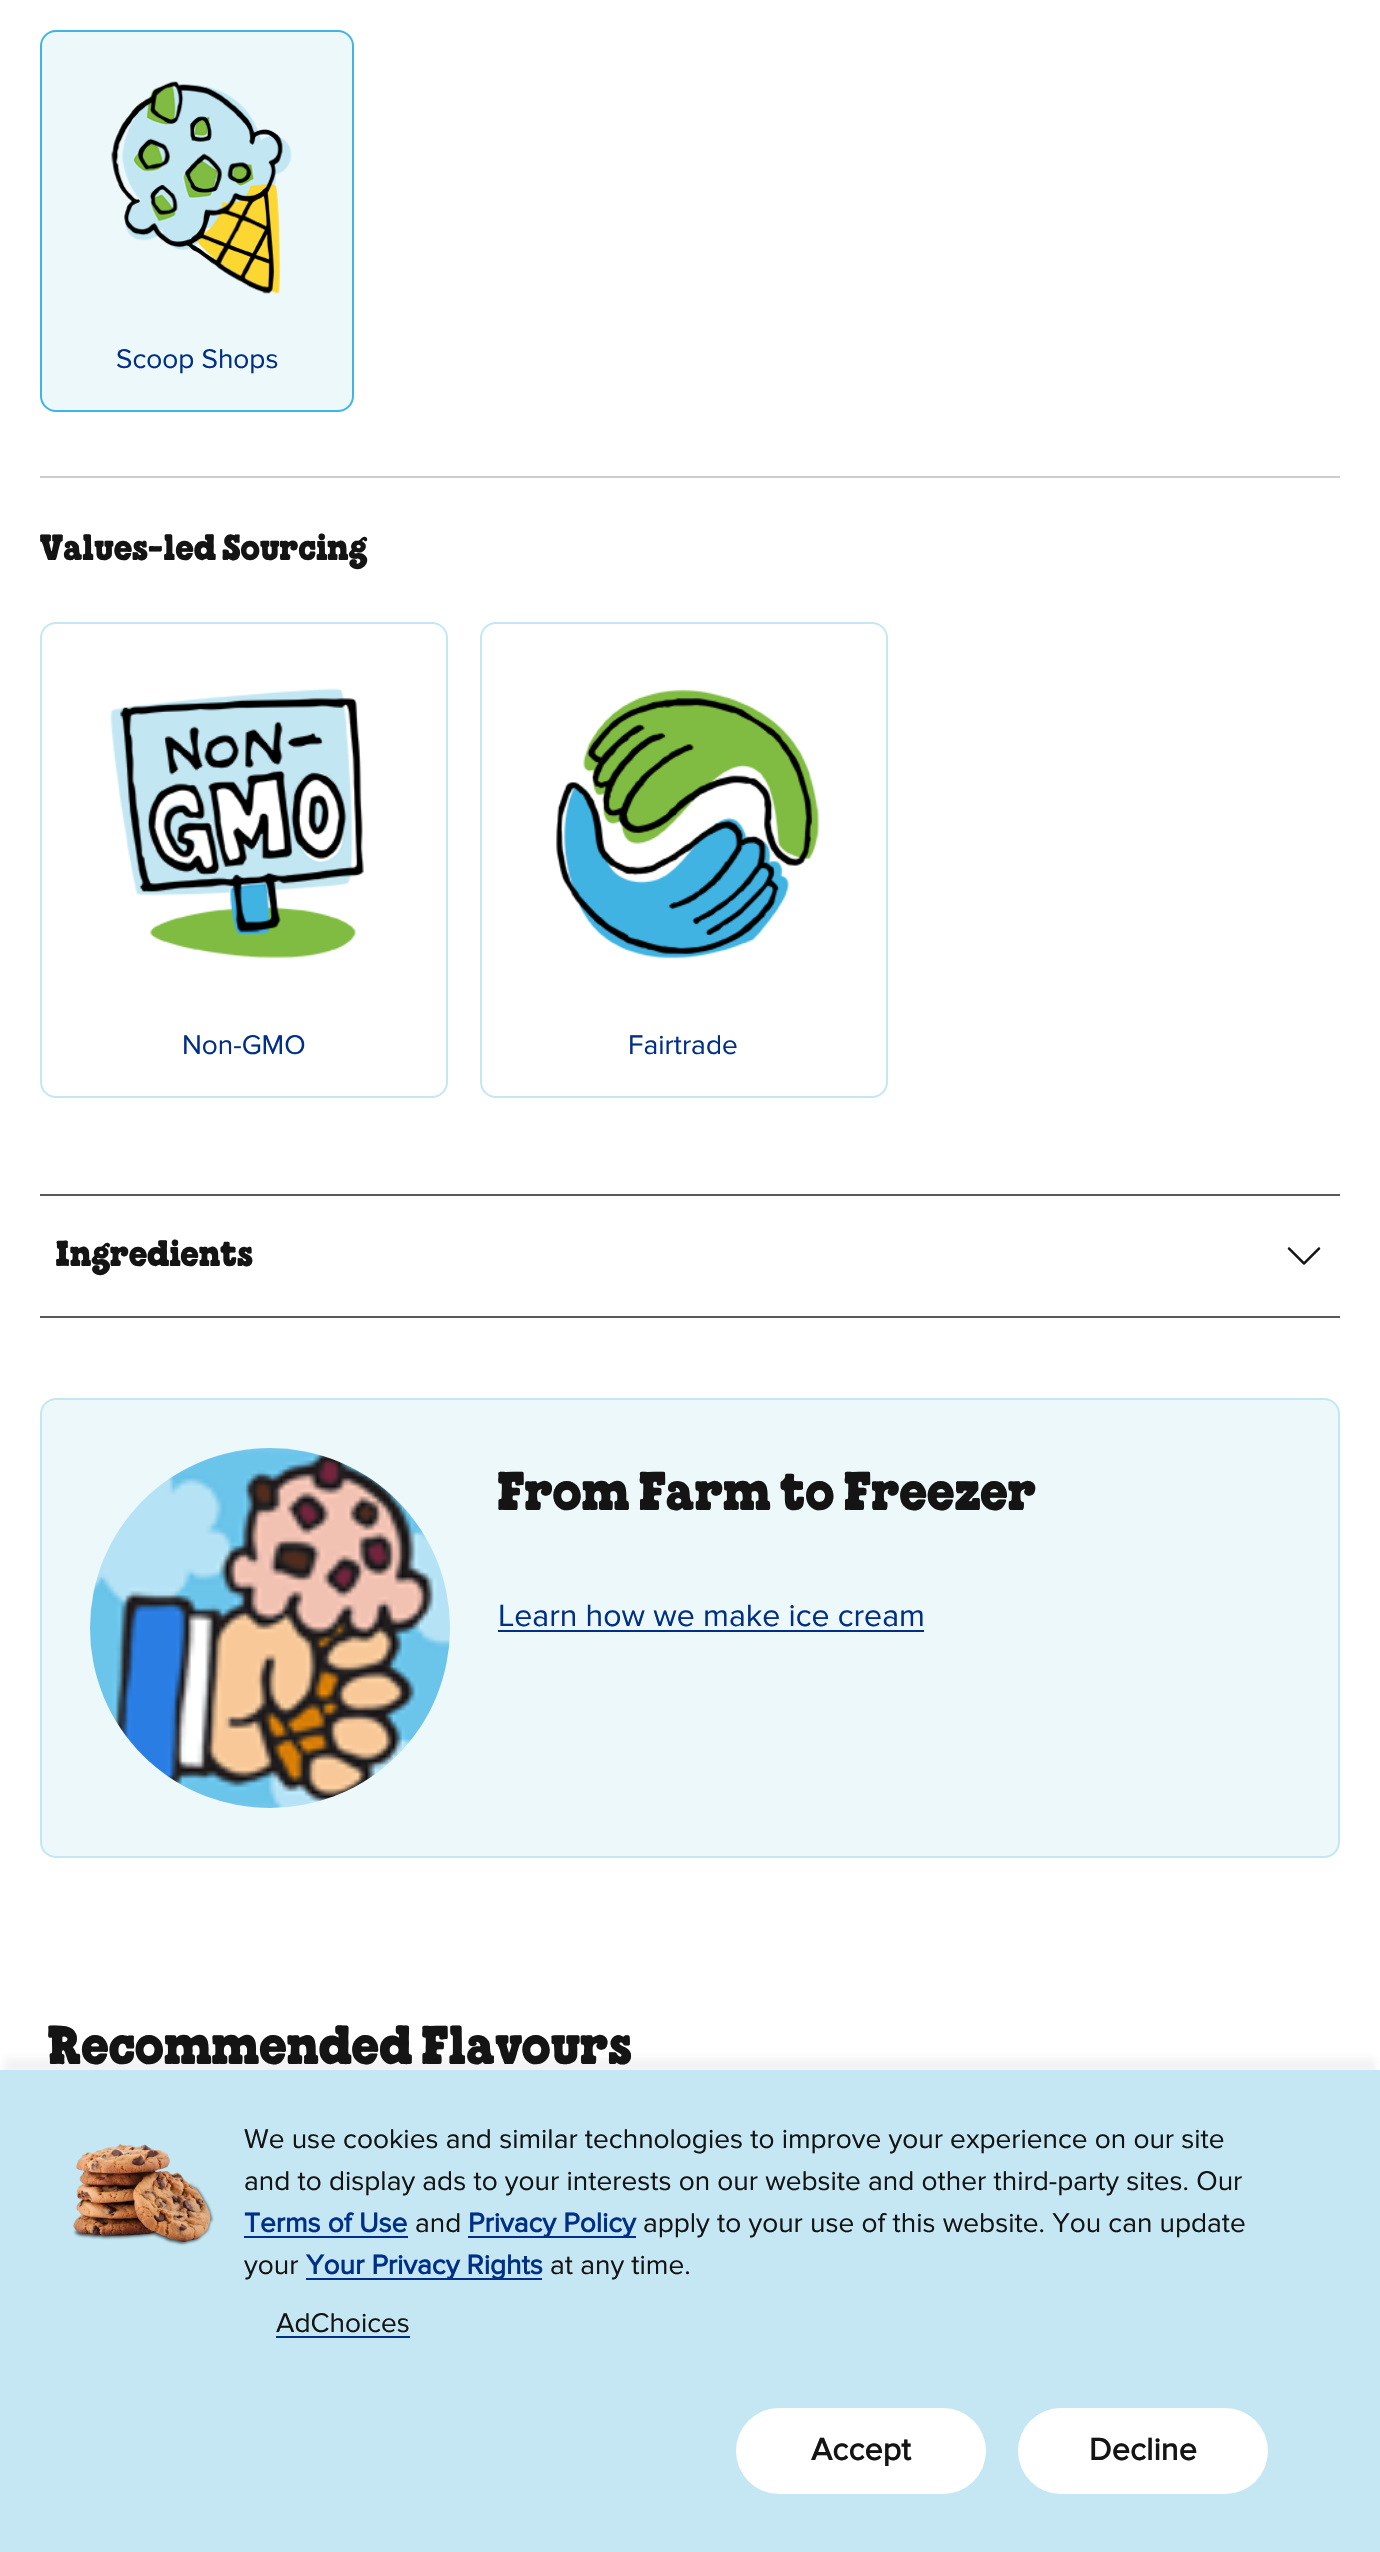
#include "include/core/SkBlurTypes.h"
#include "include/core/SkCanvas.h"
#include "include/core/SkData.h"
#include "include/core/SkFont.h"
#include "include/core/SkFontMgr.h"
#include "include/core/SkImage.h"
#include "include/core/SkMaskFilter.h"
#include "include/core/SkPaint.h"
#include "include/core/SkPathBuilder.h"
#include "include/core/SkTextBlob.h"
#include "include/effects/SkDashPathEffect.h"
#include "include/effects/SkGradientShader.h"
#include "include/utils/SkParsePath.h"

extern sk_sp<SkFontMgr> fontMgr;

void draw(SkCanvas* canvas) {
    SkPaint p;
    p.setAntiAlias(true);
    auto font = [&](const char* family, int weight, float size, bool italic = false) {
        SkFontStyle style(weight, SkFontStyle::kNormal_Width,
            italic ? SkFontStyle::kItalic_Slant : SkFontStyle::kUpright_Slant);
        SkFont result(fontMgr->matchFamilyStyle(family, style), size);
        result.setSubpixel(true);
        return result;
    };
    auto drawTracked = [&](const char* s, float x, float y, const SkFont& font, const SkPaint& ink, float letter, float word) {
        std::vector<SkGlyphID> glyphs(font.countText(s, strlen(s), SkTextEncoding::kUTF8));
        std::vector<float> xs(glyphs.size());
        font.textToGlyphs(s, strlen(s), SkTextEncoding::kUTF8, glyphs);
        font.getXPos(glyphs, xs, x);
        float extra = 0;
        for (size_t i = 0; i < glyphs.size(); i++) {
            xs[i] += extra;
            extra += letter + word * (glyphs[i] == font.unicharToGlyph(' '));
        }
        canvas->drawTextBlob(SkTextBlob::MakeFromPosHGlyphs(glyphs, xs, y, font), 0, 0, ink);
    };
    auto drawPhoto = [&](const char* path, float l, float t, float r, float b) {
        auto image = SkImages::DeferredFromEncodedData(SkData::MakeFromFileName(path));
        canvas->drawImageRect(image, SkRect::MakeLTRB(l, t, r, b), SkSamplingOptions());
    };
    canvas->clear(0xFFFFFFFF);
    p.setColor(0xFFCCCCCC);
    canvas->drawRect(SkRect::MakeLTRB(40, 476, 1340, 478), p);
    p.setColor(0xFFEDF8FB);
    canvas->drawRoundRect(SkRect::MakeLTRB(41, 31, 353, 411), 15, 15, p);
    p.setStyle(SkPaint::kStroke_Style);
    p.setStrokeWidth(2);
    p.setColor(0xFF40B4E5);
    canvas->drawRoundRect(SkRect::MakeLTRB(41, 31, 353, 411), 15, 15, p);
    drawPhoto("media/1.png", 111, 81, 292, 294);
    auto font1 = font("Proxima Nova", 400, 28);
    p.setStyle(SkPaint::kFill_Style);
    p.setColor(0xFF002F87);
    canvas->drawString("Scoop Shops", 116, 368, font1, p);
    auto font2 = font("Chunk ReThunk", 700, 32);
    p.setColor(0xFF141414);
    canvas->drawString("Values-led Sourcing", 40, 560, font2, p);
    p.setStyle(SkPaint::kStroke_Style);
    p.setColor(0xFFC4E7F3);
    canvas->drawRoundRect(SkRect::MakeLTRB(41, 623, 447, 1097), 15, 15, p);
    drawPhoto("media/2.png", 110, 688, 364, 959);
    p.setStyle(SkPaint::kFill_Style);
    p.setColor(0xFF002F87);
    canvas->drawString("Non-GMO", 182, 1054, font1, p);
    p.setStyle(SkPaint::kStroke_Style);
    p.setColor(0xFFC4E7F3);
    canvas->drawRoundRect(SkRect::MakeLTRB(481, 623, 887, 1097), 15, 15, p);
    drawPhoto("media/3.png", 556, 689, 819, 959);
    p.setStyle(SkPaint::kFill_Style);
    p.setColor(0xFF002F87);
    canvas->drawString("Fairtrade", 628, 1054, font1, p);
    p.setColor(0xFF595959);
    canvas->drawRect(SkRect::MakeLTRB(40, 1194, 1340, 1196), p);
    canvas->drawRect(SkRect::MakeLTRB(40, 1316, 1340, 1318), p);
    p.setColor(0xFF141414);
    canvas->drawString("Ingredients", 56, 1266, font2, p);
    drawPhoto("media/4.png", 1287, 1247, 1321, 1265);
    p.setColor(0xFFEDF8FB);
    canvas->drawRoundRect(SkRect::MakeLTRB(41, 1399, 1339, 1857), 15, 15, p);
    p.setStyle(SkPaint::kStroke_Style);
    p.setColor(0xFFC4E7F3);
    canvas->drawRoundRect(SkRect::MakeLTRB(41, 1399, 1339, 1857), 15, 15, p);
    drawPhoto("media/5.png", 90, 1448, 450, 1808);
    auto font3 = font("Chunk ReThunk", 700, 48);
    p.setStyle(SkPaint::kFill_Style);
    p.setColor(0xFF141414);
    canvas->drawString("From Farm to Freezer", 498, 1510, font3, p);
    auto font4 = font("Proxima Nova", 400, 32);
    p.setColor(0xFF002F87);
    canvas->drawString("Learn how we make ice cream", 498, 1626, font4, p);
    canvas->drawRect(SkRect::MakeLTRB(498, 1630, 924, 1632), p);
    p.setColor(0xFF141414);
    canvas->drawString("Recommended Flavours", 48, 2064, font3, p);
    p.setColor(0x0D141414);
    p.setMaskFilter(SkMaskFilter::MakeBlur(kNormal_SkBlurStyle, 4));
    canvas->drawRect(SkRect::MakeLTRB(4, 2058, 1376, 2532), p);
    p.setMaskFilter(nullptr);
    p.setColor(0xFFC4E7F3);
    canvas->drawRect(SkRect::MakeLTRB(0, 2070, 1380, 2552), p);
    drawPhoto("media/6.png", 73, 2144, 214, 2246);
    p.setColor(0xFF141414);
    canvas->drawString("We use cookies and similar technologies to improve your experience on our site", 244, 2148, font1, p);
    canvas->drawString("and to display ads to your interests on our website and other third-party sites. Our", 244, 2190, font1, p);
    auto font5 = font("Proxima Nova", 700, 28);
    p.setColor(0xFF002F87);
    canvas->drawString("Terms of Use", 244, 2232, font5, p);
    canvas->drawRect(SkRect::MakeLTRB(244, 2236, 408, 2238), p);
    p.setColor(0xFF141414);
    canvas->drawString("and", 415, 2232, font1, p);
    p.setColor(0xFF002F87);
    canvas->drawRect(SkRect::MakeLTRB(468, 2236, 636, 2238), p);
    canvas->drawString("Privacy Policy", 468, 2232, font5, p);
    p.setColor(0xFF141414);
    canvas->drawString("apply to your use of this website. You can update", 643, 2232, font1, p);
    canvas->drawString("your", 244, 2274, font1, p);
    p.setColor(0xFF002F87);
    canvas->drawRect(SkRect::MakeLTRB(306, 2278, 542, 2280), p);
    canvas->drawString("Your Privacy Rights", 306, 2274, font5, p);
    p.setColor(0xFF141414);
    canvas->drawString("at any time.", 550, 2274, font1, p);
    canvas->drawString("AdChoices", 276, 2332, font1, p);
    p.setColor(0xFF002F87);
    canvas->drawRect(SkRect::MakeLTRB(276, 2336, 410, 2338), p);
    p.setColor(0xFFFFFFFF);
    canvas->drawRoundRect(SkRect::MakeLTRB(736, 2408, 986, 2494), 43, 43, p);
    auto font6 = font("Proxima Nova", 700, 32);
    p.setColor(0xFF141414);
    drawTracked("Accept", 811, 2460, font6, p, 0.25f, 0);
    p.setColor(0xFFFFFFFF);
    canvas->drawRoundRect(SkRect::MakeLTRB(1018, 2408, 1268, 2494), 43, 43, p);
    p.setColor(0xFF141414);
    drawTracked("Decline", 1089, 2460, font6, p, 0.25f, 0);
}
